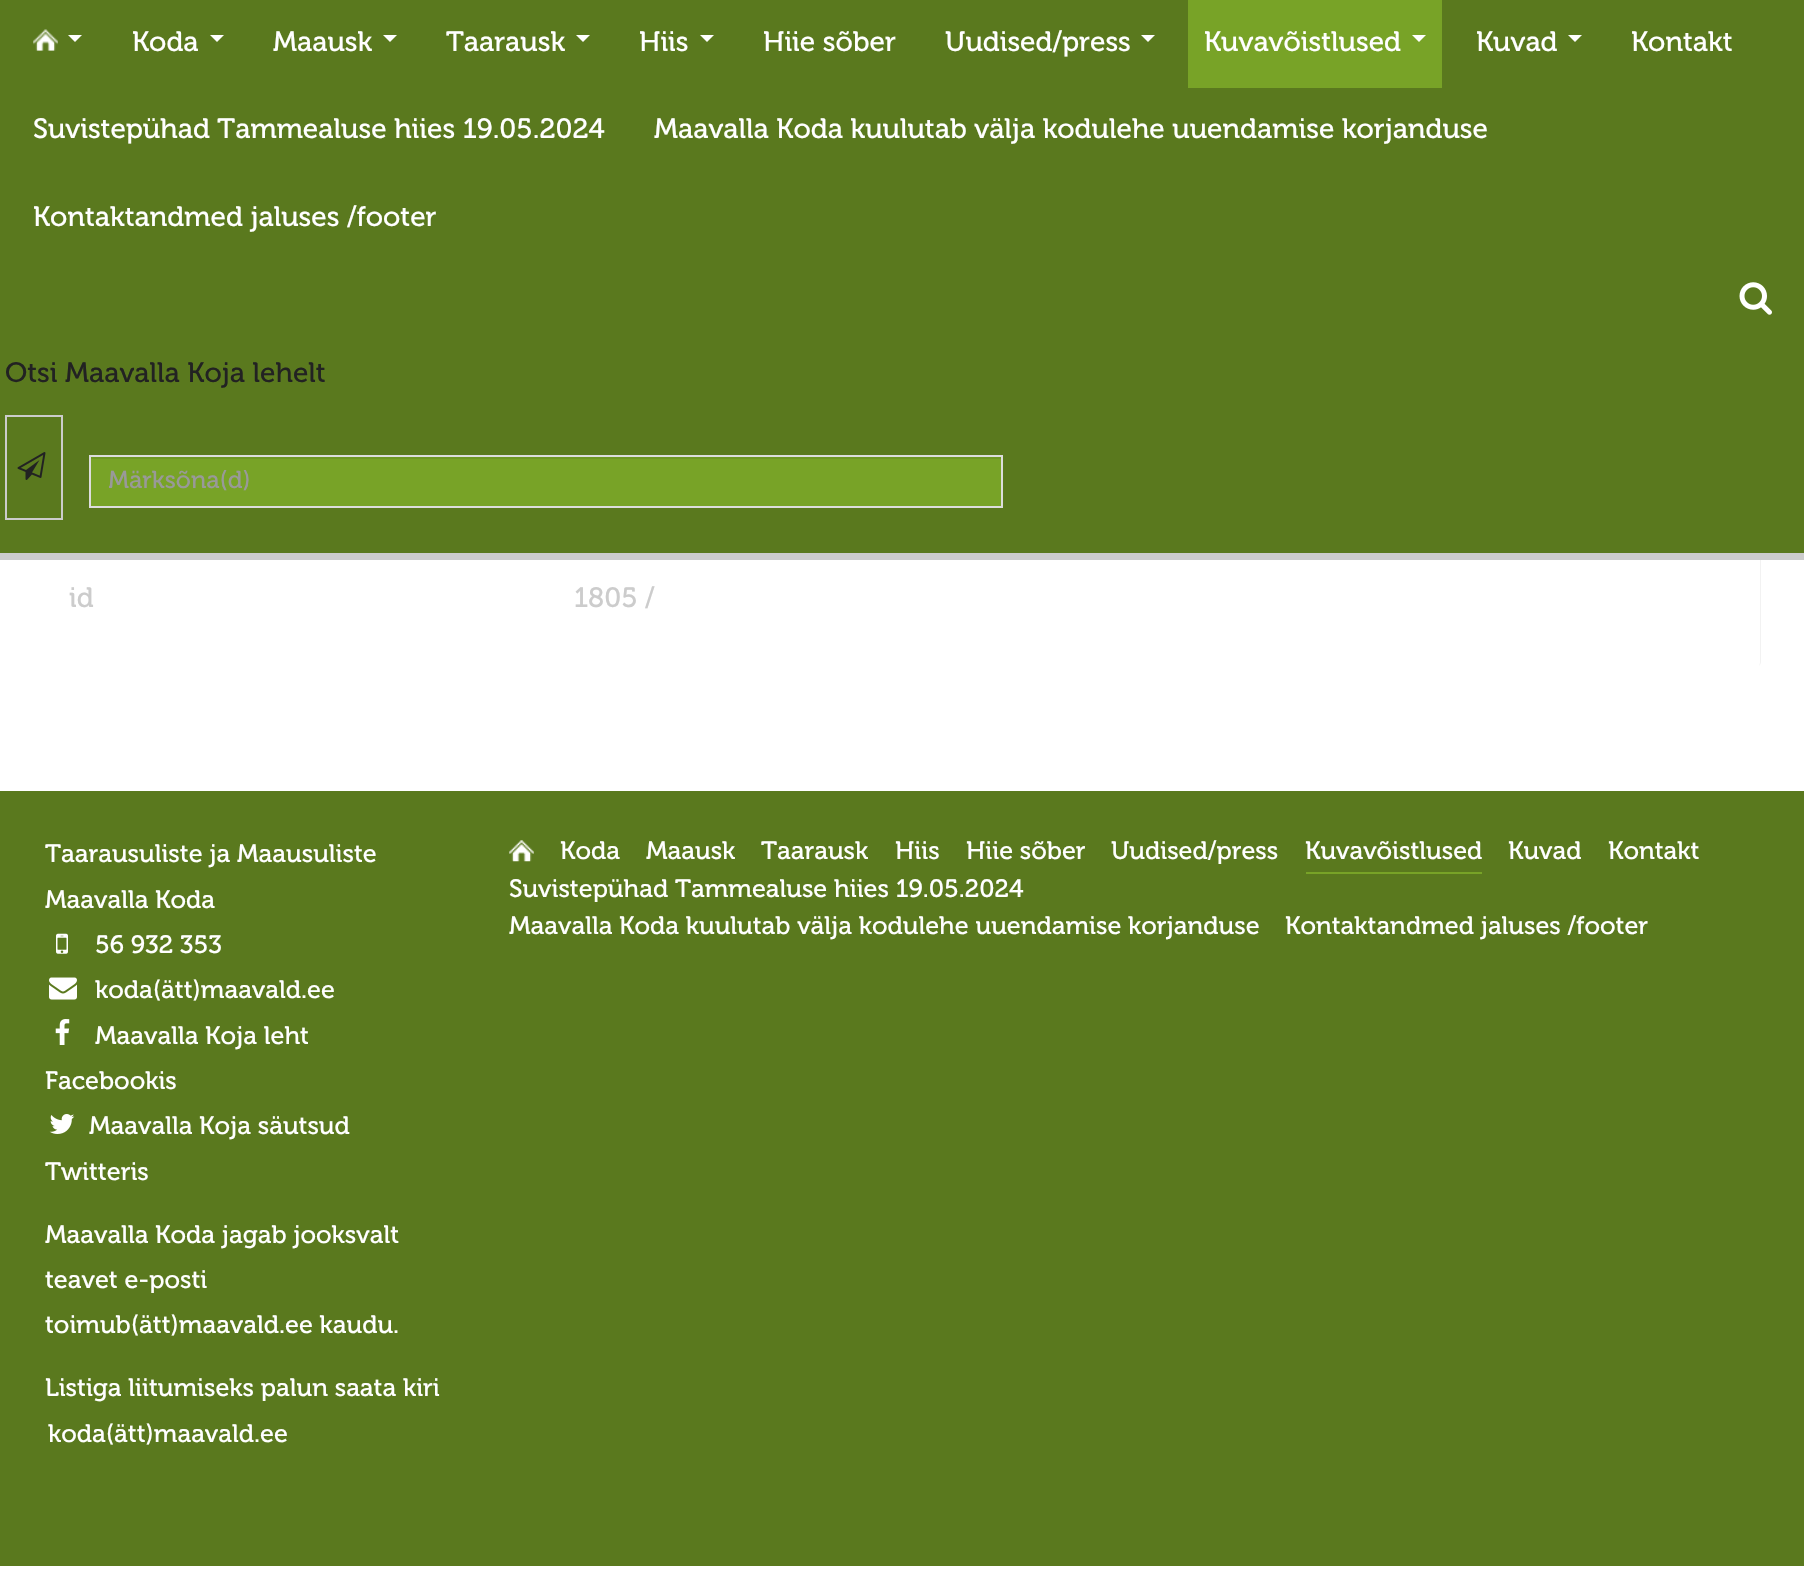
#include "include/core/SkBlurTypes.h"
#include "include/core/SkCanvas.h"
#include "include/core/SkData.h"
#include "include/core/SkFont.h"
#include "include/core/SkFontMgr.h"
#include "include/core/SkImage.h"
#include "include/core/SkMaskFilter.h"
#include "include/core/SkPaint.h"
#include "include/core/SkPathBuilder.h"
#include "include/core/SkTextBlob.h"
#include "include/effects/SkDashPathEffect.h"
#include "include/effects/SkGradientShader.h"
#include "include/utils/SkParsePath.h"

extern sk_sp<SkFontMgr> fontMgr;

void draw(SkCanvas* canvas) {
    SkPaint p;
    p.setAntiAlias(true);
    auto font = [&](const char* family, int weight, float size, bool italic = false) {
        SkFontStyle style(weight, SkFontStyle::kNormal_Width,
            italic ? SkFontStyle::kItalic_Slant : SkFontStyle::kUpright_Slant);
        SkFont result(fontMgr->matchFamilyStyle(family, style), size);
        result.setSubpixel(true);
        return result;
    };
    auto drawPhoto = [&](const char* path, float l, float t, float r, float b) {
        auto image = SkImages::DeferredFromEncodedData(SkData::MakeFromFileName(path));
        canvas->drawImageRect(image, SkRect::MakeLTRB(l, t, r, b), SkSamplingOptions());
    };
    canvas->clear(0xFFFFFFFF);
    p.setColor(0xFFF2F2F2);
    canvas->drawPath(SkPathBuilder().moveTo(51, -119).lineTo(1755, -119).cubicTo(1758, -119, 1760, -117, 1760, -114).lineTo(1760, 663).lineTo(1759, 666).cubicTo(1760, 665, 1761, 663, 1761, 662).lineTo(1761, -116).cubicTo(1761, -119, 1759, -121, 1756, -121).lineTo(51, -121).cubicTo(48, -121, 46, -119, 46, -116).lineTo(46, -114).cubicTo(46, -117, 48, -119, 51, -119).close().detach(), p);
    p.setColor(0xFF5A791E);
    canvas->drawRect(SkRect::MakeLTRB(0, 0, 1804, 553), p);
    p.setColor(0xFFCCCCCC);
    canvas->drawRect(SkRect::MakeLTRB(0, 553, 1804, 560), p);
    drawPhoto("media/1.png", 33, 29, 58, 51);
    p.setColor(0xFFFFFFFF);
    canvas->drawPath(SkPathBuilder().moveTo(68, 35).lineTo(82, 35).lineTo(75, 42).close().detach(), p);
    auto font1 = font("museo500", 400, 28);
    canvas->drawString("Koda", 132, 51, font1, p);
    canvas->drawPath(SkPathBuilder().moveTo(210, 35).lineTo(224, 35).lineTo(217, 42).close().detach(), p);
    canvas->drawString("Maausk", 273, 51, font1, p);
    canvas->drawPath(SkPathBuilder().moveTo(383, 35).lineTo(397, 35).lineTo(390, 42).close().detach(), p);
    canvas->drawString("Taarausk", 446, 51, font1, p);
    canvas->drawPath(SkPathBuilder().moveTo(576, 35).lineTo(590, 35).lineTo(583, 42).close().detach(), p);
    canvas->drawString("Hiis", 639, 51, font1, p);
    canvas->drawPath(SkPathBuilder().moveTo(700, 35).lineTo(714, 35).lineTo(707, 42).close().detach(), p);
    canvas->drawString("Hiie sõber", 763, 51, font1, p);
    canvas->drawString("Uudised/press", 945, 51, font1, p);
    canvas->drawPath(SkPathBuilder().moveTo(1141, 35).lineTo(1155, 35).lineTo(1148, 42).close().detach(), p);
    p.setColor(0xFF78A327);
    canvas->drawRect(SkRect::MakeLTRB(1188, 0, 1442, 88), p);
    p.setColor(0xFFFFFFFF);
    canvas->drawString("Kuvavõistlused", 1204, 51, font1, p);
    canvas->drawPath(SkPathBuilder().moveTo(1412, 35).lineTo(1426, 35).lineTo(1419, 42).close().detach(), p);
    canvas->drawString("Kuvad", 1476, 51, font1, p);
    canvas->drawPath(SkPathBuilder().moveTo(1568, 35).lineTo(1582, 35).lineTo(1575, 42).close().detach(), p);
    {
        const struct { const char* s; float x, y; } items[] = {
            {"Kontakt", 1631, 51},
            {"Suvistepühad Tammealuse hiies 19.05.2024", 33, 138},
            {"Maavalla Koda kuulutab välja kodulehe uuendamise korjanduse", 654, 138},
            {"Kontaktandmed jaluses /footer", 33, 226},
        };
        for (auto [s, x, y] : items) {
            canvas->drawString(s, x, y, font1, p);
        }
    }
    drawPhoto("media/2.png", 1739, 282, 1772, 315);
    p.setColor(0xFF222222);
    canvas->drawString("Otsi Maavalla Koja lehelt", 5, 382, font1, p);
    p.setStyle(SkPaint::kStroke_Style);
    p.setStrokeWidth(2);
    p.setColor(0xFFCCCCCC);
    canvas->drawRect(SkRect::MakeLTRB(6, 416, 62, 519), p);
    drawPhoto("media/3.png", 17, 452, 46, 480);
    p.setStyle(SkPaint::kFill_Style);
    p.setColor(0xFF78A327);
    canvas->drawRect(SkRect::MakeLTRB(91, 459, 1001, 506), p);
    p.setColor(0xFF6F9724);
    canvas->drawRect(SkRect::MakeLTRB(91, 457, 1001, 459), p);
    p.setStyle(SkPaint::kStroke_Style);
    p.setColor(0xFFDDDDDD);
    canvas->drawRect(SkRect::MakeLTRB(90, 456, 1002, 507), p);
    canvas->save();
    canvas->clipRect(SkRect::MakeLTRB(109, 467, 984, 497));
    auto font2 = font("museo500", 400, 24.5f);
    p.setStyle(SkPaint::kFill_Style);
    p.setColor(0xFF999999);
    canvas->drawString("Märksõna(d)", 108, 488, font2, p);
    canvas->restore();
    p.setColor(0xFFCCCCCC);
    canvas->drawString("id", 69, 607, font1, p);
    canvas->drawString("1805 /", 574, 607, font1, p);
    p.setColor(0xFF5A791E);
    canvas->drawRect(SkRect::MakeLTRB(0, 791, 1804, 1566), p);
    auto font3 = font("museo500", 400, 25.2f);
    p.setColor(0xFFFFFFFF);
    canvas->drawString("Taarausuliste ja Maausuliste", 45, 862, font3, p);
    canvas->drawString("Maavalla Koda", 45, 908, font3, p);
    drawPhoto("media/4.png", 56, 933, 68, 954);
    canvas->drawString("56 932 353", 95, 953, font3, p);
    drawPhoto("media/5.png", 49, 977, 77, 1000);
    canvas->drawString("koda(ätt)maavald.ee", 95, 998, font3, p);
    drawPhoto("media/6.png", 55, 1019, 70, 1045);
    canvas->drawString("Maavalla Koja leht", 95, 1044, font3, p);
    canvas->drawString("Facebookis", 45, 1089, font3, p);
    drawPhoto("media/7.png", 49, 1114, 75, 1134);
    {
        const struct { const char* s; float x, y; } items[] = {
            {"Maavalla Koja säutsud", 89, 1134},
            {"Twitteris", 45, 1180},
            {"Maavalla Koda jagab jooksvalt", 45, 1243},
            {"teavet e-posti", 45, 1288},
            {"toimub(ätt)maavald.ee kaudu.", 45, 1333},
            {"Listiga liitumiseks palun saata kiri", 45, 1396},
            {"koda(ätt)maavald.ee", 48, 1442},
        };
        for (auto [s, x, y] : items) {
            canvas->drawString(s, x, y, font3, p);
        }
    }
    drawPhoto("media/8.png", 509, 840, 534, 862);
    {
        const struct { const char* s; float x, y; } items[] = {
            {"Koda", 560, 859},
            {"Maausk", 646, 859},
            {"Taarausk", 761, 859},
            {"Hiis", 895, 859},
            {"Hiie sõber", 966, 859},
            {"Uudised/press", 1111, 859},
        };
        for (auto [s, x, y] : items) {
            canvas->drawString(s, x, y, font3, p);
        }
    }
    p.setColor(0xFF78A327);
    canvas->drawRect(SkRect::MakeLTRB(1306, 872, 1482, 874), p);
    p.setColor(0xFFFFFFFF);
    {
        const struct { const char* s; float x, y; } items[] = {
            {"Kuvavõistlused", 1305, 859},
            {"Kuvad", 1508, 859},
            {"Kontakt", 1608, 859},
            {"Suvistepühad Tammealuse hiies 19.05.2024", 509, 897},
            {"Maavalla Koda kuulutab välja kodulehe uuendamise korjanduse", 509, 934},
            {"Kontaktandmed jaluses /footer", 1285, 934},
        };
        for (auto [s, x, y] : items) {
            canvas->drawString(s, x, y, font3, p);
        }
    }
}
